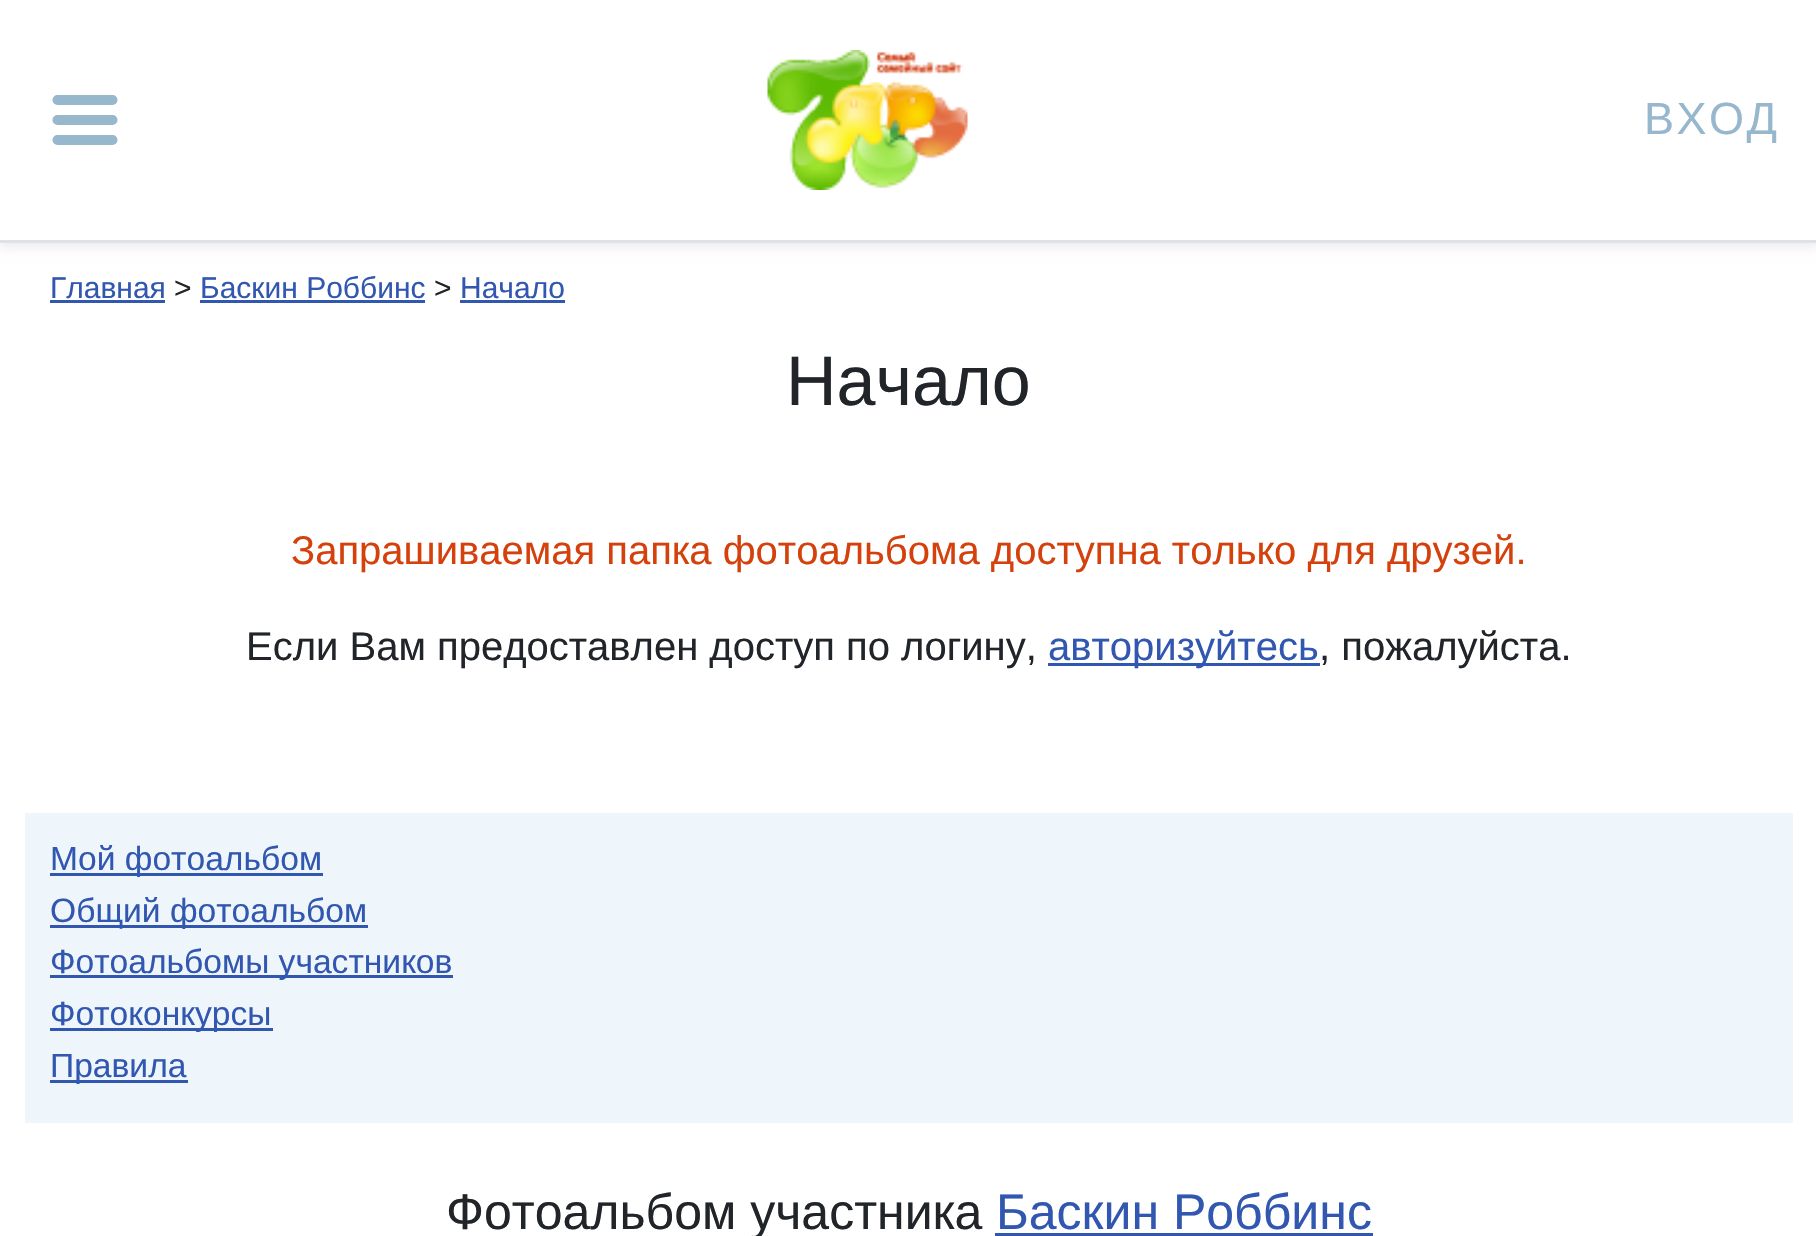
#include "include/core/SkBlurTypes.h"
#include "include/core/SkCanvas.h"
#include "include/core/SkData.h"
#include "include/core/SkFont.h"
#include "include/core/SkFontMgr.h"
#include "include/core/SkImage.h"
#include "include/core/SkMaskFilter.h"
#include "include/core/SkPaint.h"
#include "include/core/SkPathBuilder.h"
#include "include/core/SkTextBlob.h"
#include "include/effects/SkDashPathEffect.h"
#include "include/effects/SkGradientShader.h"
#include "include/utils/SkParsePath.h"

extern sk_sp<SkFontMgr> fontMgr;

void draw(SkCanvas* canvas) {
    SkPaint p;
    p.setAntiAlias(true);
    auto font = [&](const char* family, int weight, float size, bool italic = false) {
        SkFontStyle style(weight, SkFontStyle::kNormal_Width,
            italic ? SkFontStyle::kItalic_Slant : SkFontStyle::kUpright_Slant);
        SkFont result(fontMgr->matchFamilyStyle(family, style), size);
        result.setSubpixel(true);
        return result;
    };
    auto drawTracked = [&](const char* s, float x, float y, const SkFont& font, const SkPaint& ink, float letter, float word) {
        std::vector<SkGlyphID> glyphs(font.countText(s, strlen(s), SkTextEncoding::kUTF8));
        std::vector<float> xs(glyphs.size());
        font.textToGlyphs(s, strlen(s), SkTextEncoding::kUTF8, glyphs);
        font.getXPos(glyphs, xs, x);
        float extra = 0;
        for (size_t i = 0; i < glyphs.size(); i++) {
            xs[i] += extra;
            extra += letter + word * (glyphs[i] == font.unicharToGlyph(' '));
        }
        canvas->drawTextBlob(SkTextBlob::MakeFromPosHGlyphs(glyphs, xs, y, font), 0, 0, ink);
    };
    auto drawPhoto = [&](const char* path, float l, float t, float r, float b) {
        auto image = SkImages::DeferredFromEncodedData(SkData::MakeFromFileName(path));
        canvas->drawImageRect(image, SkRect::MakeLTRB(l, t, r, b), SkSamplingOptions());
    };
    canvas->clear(0xFFFFFFFF);
    p.setColor(0x12000000);
    p.setMaskFilter(SkMaskFilter::MakeBlur(kNormal_SkBlurStyle, 5));
    canvas->drawRect(SkRect::MakeLTRB(0, 5, 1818, 248), p);
    p.setMaskFilter(nullptr);
    p.setColor(0xFFFFFFFF);
    canvas->drawRect(SkRect::MakeLTRB(0, 0, 1816, 240), p);
    p.setColor(0xFFDEE2E6);
    canvas->drawRect(SkRect::MakeLTRB(0, 240, 1816, 243), p);
    p.setStyle(SkPaint::kStroke_Style);
    p.setStrokeWidth(10);
    p.setStrokeCap(SkPaint::kRound_Cap);
    p.setColor(0xFF96B7CC);
    canvas->drawPath(SkPathBuilder().moveTo(57.5f, 100).lineTo(112.5f, 100).moveTo(57.5f, 120).lineTo(112.5f, 120).moveTo(57.5f, 140).lineTo(112.5f, 140).detach(), p);
    drawPhoto("media/1.png", 767, 50, 968, 190);
    auto font1 = font("Liberation Sans", 400, 45);
    p.setStyle(SkPaint::kFill_Style);
    drawTracked("ВХОД", 1644, 134, font1, p, 2.5f, 0);
    auto font2 = font("Liberation Sans", 400, 30);
    p.setColor(0xFF3157B0);
    canvas->drawString("Главная", 50, 298, font2, p);
    canvas->drawRect(SkRect::MakeLTRB(50, 300, 165, 303), p);
    p.setColor(0xFF212529);
    canvas->drawString(">", 174, 298, font2, p);
    p.setColor(0xFF3157B0);
    canvas->drawString("Баскин Роббинс", 200, 298, font2, p);
    canvas->drawRect(SkRect::MakeLTRB(200, 300, 425, 303), p);
    p.setColor(0xFF212529);
    canvas->drawString(">", 434, 298, font2, p);
    p.setColor(0xFF3157B0);
    canvas->drawString("Начало", 460, 298, font2, p);
    canvas->drawRect(SkRect::MakeLTRB(460, 300, 565, 303), p);
    auto font3 = font("Liberation Sans", 400, 70);
    p.setColor(0xFF212529);
    canvas->drawString("Начало", 786, 405, font3, p);
    auto font4 = font("Liberation Sans", 400, 40);
    p.setColor(0xFFD4410C);
    canvas->drawString("Запрашиваемая папка фотоальбома доступна только для друзей.", 291, 564, font4, p);
    p.setColor(0xFF212529);
    canvas->drawString("Если Вам предоставлен доступ по логину,", 246, 660, font4, p);
    p.setColor(0xFF3157B0);
    canvas->drawRect(SkRect::MakeLTRB(1048, 663, 1320, 666), p);
    canvas->drawString("авторизуйтесь", 1048, 660, font4, p);
    p.setColor(0xFF212529);
    canvas->drawString(", пожалуйста.", 1319, 660, font4, p);
    p.setColor(0xFFEEF5FB);
    canvas->drawRect(SkRect::MakeLTRB(25, 813, 1793, 1123), p);
    p.setColor(0xFF3157B0);
    canvas->drawRect(SkRect::MakeLTRB(50, 873, 323, 876), p);
    auto font5 = font("Liberation Sans", 400, 33.6f);
    canvas->drawString("Мой фотоальбом", 50, 870, font5, p);
    canvas->drawRect(SkRect::MakeLTRB(50, 925, 368, 928), p);
    canvas->drawString("Общий фотоальбом", 50, 922, font5, p);
    canvas->drawRect(SkRect::MakeLTRB(50, 975, 453, 978), p);
    canvas->drawString("Фотоальбомы участников", 50, 973, font5, p);
    canvas->drawRect(SkRect::MakeLTRB(50, 1028, 273, 1031), p);
    canvas->drawString("Фотоконкурсы", 50, 1025, font5, p);
    canvas->drawRect(SkRect::MakeLTRB(50, 1080, 188, 1083), p);
    canvas->drawString("Правила", 50, 1077, font5, p);
    auto font6 = font("Liberation Sans", 400, 50);
    p.setColor(0xFF212529);
    canvas->drawString("Фотоальбом участника", 446, 1229, font6, p);
    p.setColor(0xFF3157B0);
    canvas->drawString("Баскин Роббинс", 996, 1229, font6, p);
    canvas->drawRect(SkRect::MakeLTRB(995, 1233, 1373, 1236), p);
}
